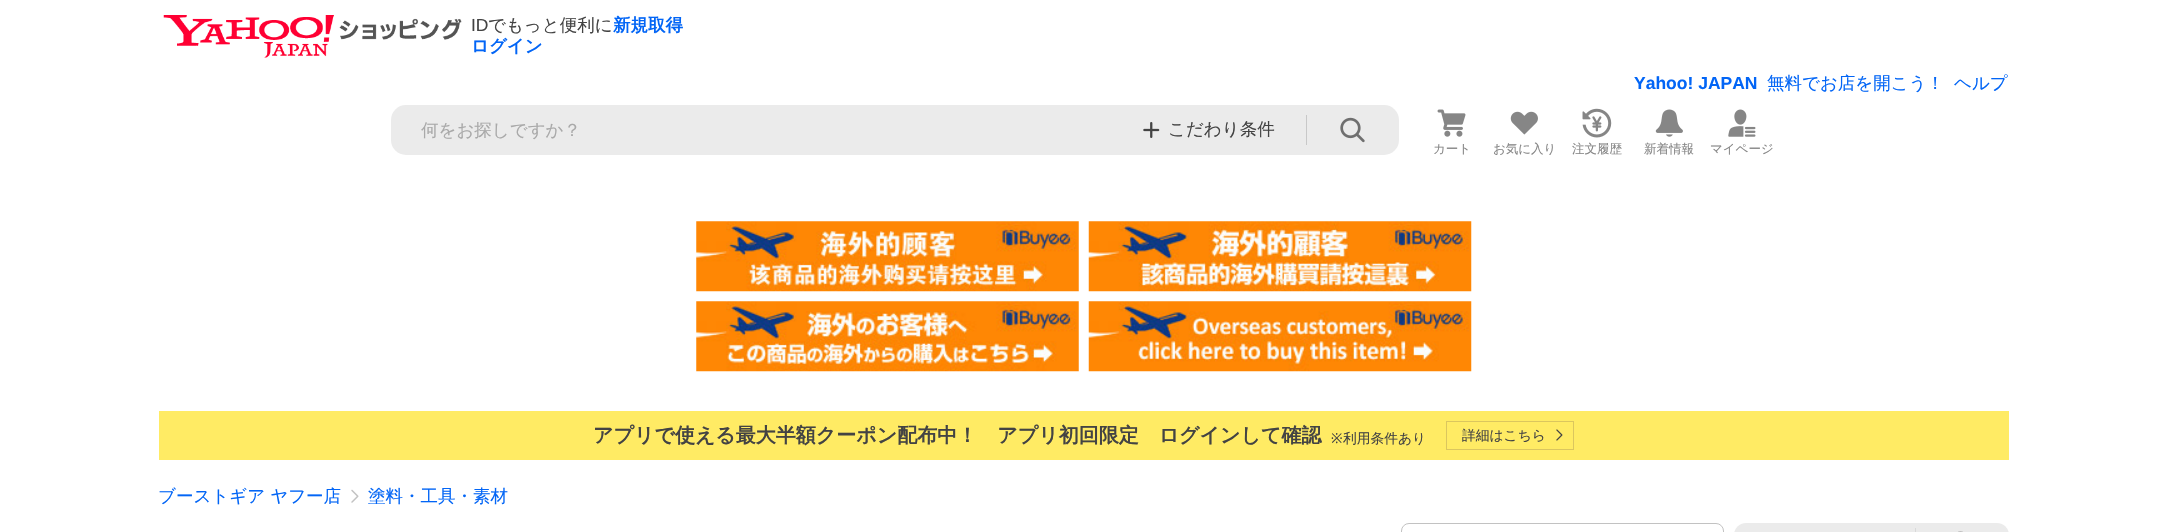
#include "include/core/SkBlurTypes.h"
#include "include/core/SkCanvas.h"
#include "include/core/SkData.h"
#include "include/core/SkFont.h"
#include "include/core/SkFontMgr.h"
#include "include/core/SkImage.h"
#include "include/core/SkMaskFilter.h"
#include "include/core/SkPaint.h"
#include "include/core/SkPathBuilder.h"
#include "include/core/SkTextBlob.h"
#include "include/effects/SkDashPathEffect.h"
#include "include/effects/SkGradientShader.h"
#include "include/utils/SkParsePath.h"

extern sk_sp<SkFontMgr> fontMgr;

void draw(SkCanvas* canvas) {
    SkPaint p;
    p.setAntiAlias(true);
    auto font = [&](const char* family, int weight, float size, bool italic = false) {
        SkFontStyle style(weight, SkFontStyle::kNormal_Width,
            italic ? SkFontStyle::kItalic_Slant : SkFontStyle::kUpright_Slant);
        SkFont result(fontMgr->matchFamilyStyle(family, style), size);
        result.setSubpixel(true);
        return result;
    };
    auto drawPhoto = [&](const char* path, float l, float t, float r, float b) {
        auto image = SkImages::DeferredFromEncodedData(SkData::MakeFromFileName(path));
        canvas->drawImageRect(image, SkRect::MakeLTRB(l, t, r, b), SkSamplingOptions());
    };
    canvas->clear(0xFFFFFFFF);
    drawPhoto("media/1.png", 163, 15, 462, 58);
    auto font1 = font("Liberation Sans", 400, 17.5f);
    p.setColor(0xFF434343);
    canvas->drawString("ID", 471, 31, font1, p);
    auto font2 = font("WenQuanYi Zen Hei", 500, 17.5f);
    canvas->drawString("でもっと便利に", 488, 31, font2, p);
    auto font3 = font("WenQuanYi Zen Hei", 700, 17.5f);
    p.setColor(0xFF0265F6);
    canvas->drawString("新規取得", 613, 31, font3, p);
    canvas->drawString("ログイン", 471, 52, font3, p);
    auto font4 = font("Liberation Sans", 700, 17.5f);
    canvas->drawString("Yahoo! JAPAN", 1634, 89, font4, p);
    canvas->drawString("無料でお店を開こう！", 1767, 89, font2, p);
    canvas->drawString("ヘルプ", 1954, 89, font2, p);
    p.setColor(0xFFEBEBEB);
    canvas->drawRoundRect(SkRect::MakeLTRB(391, 105, 1399, 155), 15, 15, p);
    p.setColor(0xFFA9A9A9);
    canvas->drawString("何をお探しですか？", 421, 136, font2, p);
    drawPhoto("media/2.png", 1143, 122, 1160, 138);
    p.setColor(0xFF434343);
    canvas->drawString("こだわり条件", 1168, 135, font2, p);
    p.setColor(0xFFC8C8C8);
    canvas->drawRect(SkRect::MakeLTRB(1306, 115, 1307, 145), p);
    drawPhoto("media/3.png", 1340, 117, 1365, 143);
    drawPhoto("media/4.png", 1437, 109, 1466, 137);
    auto font5 = font("WenQuanYi Zen Hei", 500, 12.5f);
    p.setColor(0xFF868686);
    canvas->drawString("カート", 1433, 153, font5, p);
    drawPhoto("media/5.png", 1510, 111, 1538, 135);
    canvas->drawString("お気に入り", 1493, 153, font5, p);
    drawPhoto("media/6.png", 1582, 108, 1612, 138);
    canvas->drawString("注文履歴", 1572, 153, font5, p);
    drawPhoto("media/7.png", 1655, 109, 1683, 137);
    canvas->drawString("新着情報", 1644, 153, font5, p);
    drawPhoto("media/8.png", 1728, 109, 1756, 137);
    canvas->drawString("マイページ", 1710, 153, font5, p);
    drawPhoto("media/9.png", 696, 221, 1079, 292);
    drawPhoto("media/10.png", 1088, 221, 1472, 292);
    drawPhoto("media/11.png", 696, 301, 1079, 372);
    drawPhoto("media/12.png", 1088, 301, 1472, 372);
    p.setColor(0xFFFFEB64);
    canvas->drawRect(SkRect::MakeLTRB(159, 411, 2009, 460), p);
    auto font6 = font("WenQuanYi Zen Hei", 700, 20);
    p.setColor(0xFF434343);
    canvas->drawString("アプリで使える最大半額クーポン配布中！　アプリ初回限定　ログインして確認", 593, 442, font6, p);
    auto font7 = font("Noto Sans", 400, 13.75f);
    canvas->drawString("※", 1331, 443, font7, p);
    auto font8 = font("WenQuanYi Zen Hei", 500, 13.75f);
    canvas->drawString("利用条件あり", 1343, 443, font8, p);
    p.setStyle(SkPaint::kStroke_Style);
    p.setStrokeWidth(1);
    p.setColor(0xFFDBC65E);
    canvas->drawRect(SkRect::MakeLTRB(1446.5f, 421.5f, 1573.5f, 449.5f), p);
    p.setStyle(SkPaint::kFill_Style);
    p.setColor(0xFF434343);
    canvas->drawString("詳細はこちら", 1462, 440, font8, p);
    drawPhoto("media/13.png", 1556, 429, 1563, 441);
    p.setColor(0xFF0265F6);
    canvas->drawString("ブーストギア ヤフー店", 158, 502, font2, p);
    drawPhoto("media/14.png", 351, 489, 359, 503);
    canvas->drawString("塗料・工具・素材", 368, 502, font2, p);
    p.setStyle(SkPaint::kStroke_Style);
    p.setColor(0xFFC2C2C2);
    canvas->drawRoundRect(SkRect::MakeLTRB(1401.5f, 523.5f, 1723.5f, 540.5f), 7.5f, 7.5f, p);
    p.setStyle(SkPaint::kFill_Style);
    p.setColor(0xFFEBEBEB);
    canvas->drawRoundRect(SkRect::MakeLTRB(1734, 523, 2009, 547), 15, 15, p);
    p.setColor(0xFFD9D9D9);
    canvas->drawRect(SkRect::MakeLTRB(1915, 528, 1916, 532), p);
    drawPhoto("media/15.png", 1958, 531, 1963, 532);
}
